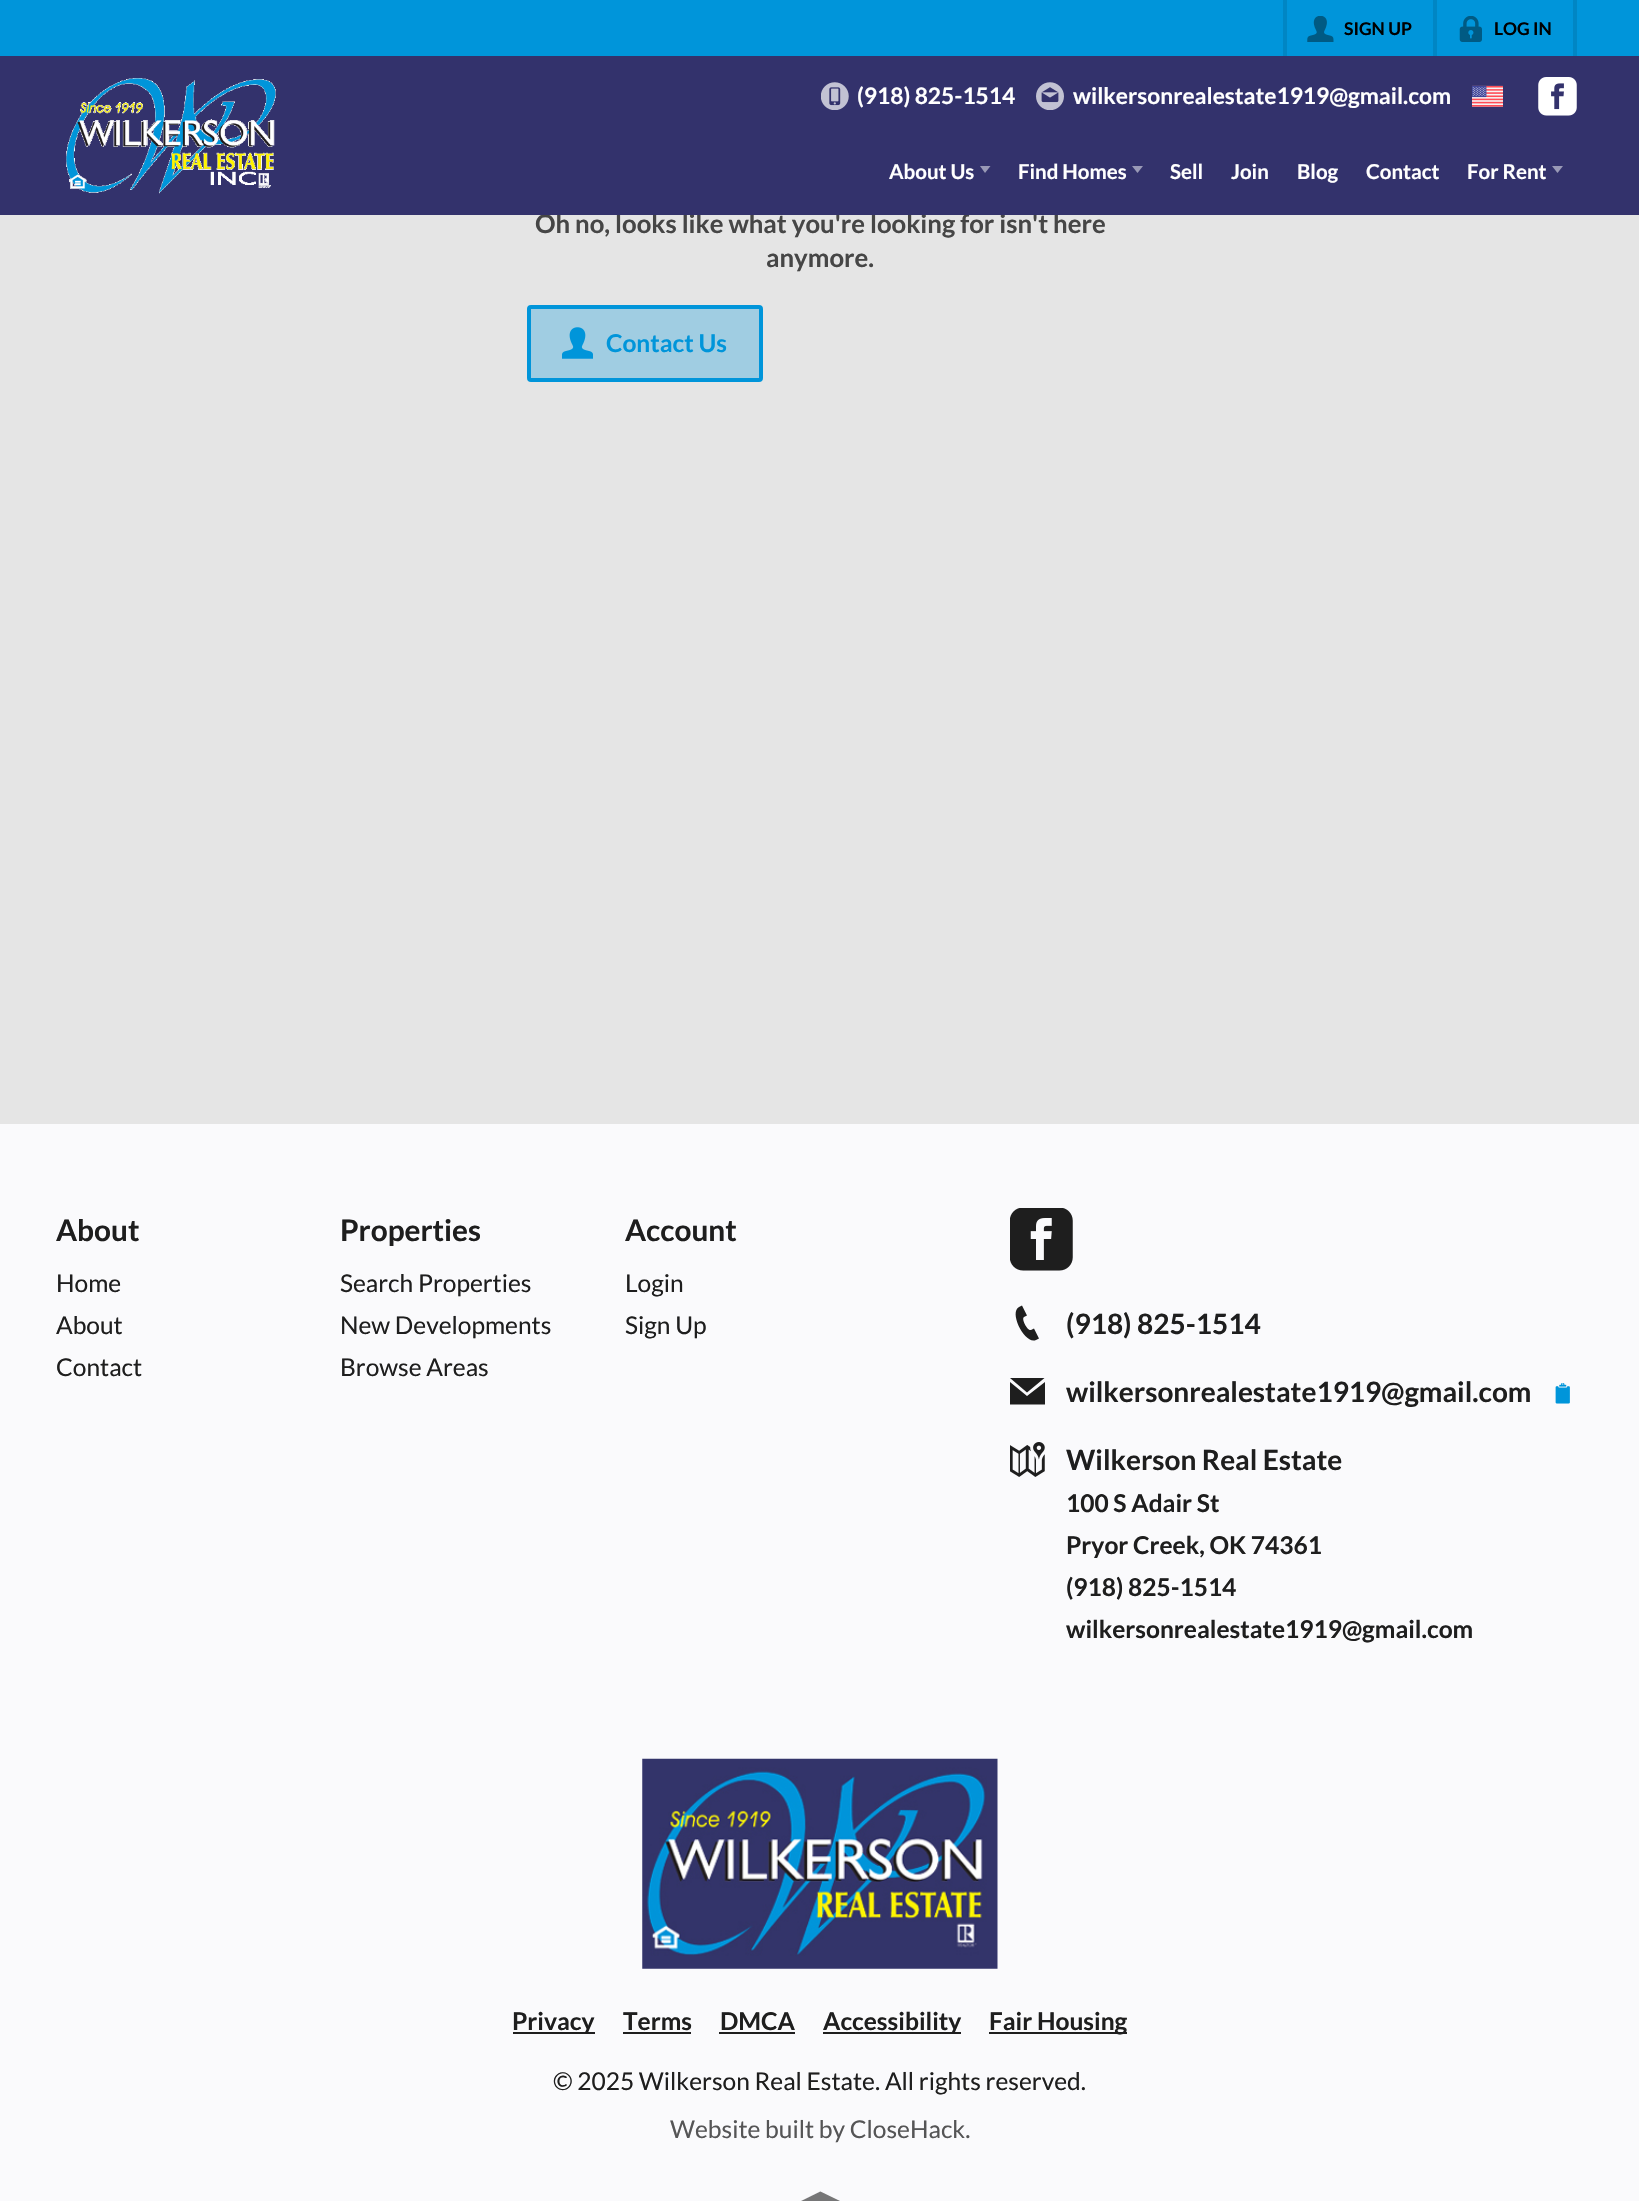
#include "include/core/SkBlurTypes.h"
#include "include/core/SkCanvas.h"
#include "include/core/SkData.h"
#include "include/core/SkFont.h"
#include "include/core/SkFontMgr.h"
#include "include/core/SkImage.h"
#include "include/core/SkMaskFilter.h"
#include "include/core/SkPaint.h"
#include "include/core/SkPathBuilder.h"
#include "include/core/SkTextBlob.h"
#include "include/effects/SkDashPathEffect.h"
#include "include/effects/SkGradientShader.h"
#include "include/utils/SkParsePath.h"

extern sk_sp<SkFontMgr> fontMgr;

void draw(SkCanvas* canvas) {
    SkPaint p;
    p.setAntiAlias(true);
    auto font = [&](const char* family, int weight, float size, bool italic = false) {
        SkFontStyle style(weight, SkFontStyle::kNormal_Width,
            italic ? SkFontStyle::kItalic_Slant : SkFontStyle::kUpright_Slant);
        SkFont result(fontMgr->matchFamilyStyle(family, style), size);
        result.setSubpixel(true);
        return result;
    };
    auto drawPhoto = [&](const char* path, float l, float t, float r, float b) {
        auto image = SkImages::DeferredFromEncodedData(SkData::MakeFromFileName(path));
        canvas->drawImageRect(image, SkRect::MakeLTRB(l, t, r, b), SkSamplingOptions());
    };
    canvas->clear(0xFFFAFAFC);
    {
        const struct { float l, t, r, b; SkColor color; } items[] = {
            {0, 0, 1639, 56, 0xFF0095DA},
            {1573, 0, 1577, 56, 0xFF0086C4},
            {1283, 0, 1287, 56, 0xFF0086C4},
        };
        for (auto [l, t, r, b, color] : items) {
            p.setColor(color);
            canvas->drawRect(SkRect::MakeLTRB(l, t, r, b), p);
        }
    }
    drawPhoto("media/1.png", 1307, 16, 1334, 42);
    auto font1 = font("Lato", 700, 17.5f);
    p.setColor(0xFF000000);
    canvas->drawString("SIGN UP", 1344, 35, font1, p);
    p.setColor(0xFF0086C4);
    canvas->drawRect(SkRect::MakeLTRB(1433, 0, 1437, 56), p);
    drawPhoto("media/2.png", 1459, 16, 1482, 42);
    p.setColor(0xFF000000);
    canvas->drawString("LOG IN", 1494, 35, font1, p);
    p.setColor(0xFFE5E5E5);
    canvas->drawRect(SkRect::MakeLTRB(0, 215, 1639, 1124), p);
    auto font2 = font("Lato", 700, 25.7f);
    p.setColor(0xFF464646);
    canvas->drawString("Oh no, looks like what you're looking for isn't here", 535, 233, font2, p);
    p.setColor(0xFF33326C);
    canvas->drawRect(SkRect::MakeLTRB(0, 56, 1639, 215), p);
    drawPhoto("media/3.png", 66, 78, 276, 194);
    drawPhoto("media/4.png", 821, 82, 849, 110);
    auto font3 = font("Lato", 700, 22.75f);
    p.setColor(0xFFFFFFFF);
    canvas->drawString("(918) 825-1514", 857, 104, font3, p);
    drawPhoto("media/5.png", 1036, 82, 1064, 110);
    canvas->drawString("wilkersonrealestate1919@gmail.com", 1073, 104, font3, p);
    drawPhoto("media/6.png", 1472, 85, 1503, 107);
    drawPhoto("media/7.png", 1538, 77, 1577, 116);
    auto font4 = font("Lato", 700, 20.5f);
    canvas->drawString("About Us", 889, 179, font4, p);
    p.setColor(0xFF9999B6);
    canvas->drawPath(SkPathBuilder().moveTo(980, 166).lineTo(990.5f, 166).lineTo(985, 173).close().detach(), p);
    p.setColor(0xFFFFFFFF);
    canvas->drawString("Find Homes", 1018, 179, font4, p);
    p.setColor(0xFF9999B6);
    canvas->drawPath(SkPathBuilder().moveTo(1132, 166).lineTo(1143, 166).lineTo(1137.5f, 173).close().detach(), p);
    p.setColor(0xFFFFFFFF);
    {
        const struct { const char* s; float x, y; } items[] = {
            {"Sell", 1170, 179},
            {"Join", 1231, 179},
            {"Blog", 1297, 179},
            {"Contact", 1366, 179},
            {"For Rent", 1467, 179},
        };
        for (auto [s, x, y] : items) {
            canvas->drawString(s, x, y, font4, p);
        }
    }
    p.setColor(0xFF9999B6);
    canvas->drawPath(SkPathBuilder().moveTo(1552, 166).lineTo(1563, 166).lineTo(1557.5f, 173).close().detach(), p);
    p.setColor(0xFF464646);
    canvas->drawString("anymore.", 766, 267, font2, p);
    p.setColor(0xFFA0CDE2);
    canvas->drawRoundRect(SkRect::MakeLTRB(529, 307, 761, 380), 2, 2, p);
    p.setStyle(SkPaint::kStroke_Style);
    p.setStrokeWidth(4);
    p.setColor(0xFF0095DA);
    canvas->drawRoundRect(SkRect::MakeLTRB(529, 307, 761, 380), 2, 2, p);
    drawPhoto("media/8.png", 562, 327, 593, 359);
    auto font5 = font("Lato", 700, 24.5f);
    p.setStyle(SkPaint::kFill_Style);
    canvas->drawString("Contact Us", 606, 352, font5, p);
    auto font6 = font("Lato", 700, 29.75f);
    p.setColor(0xFF1E1E1E);
    canvas->drawString("About", 56, 1241, font6, p);
    auto font7 = font("Lato", 400, 24.5f);
    {
        const struct { const char* s; float x, y; } items[] = {
            {"Home", 56, 1292},
            {"About", 56, 1334},
            {"Contact", 56, 1376},
        };
        for (auto [s, x, y] : items) {
            canvas->drawString(s, x, y, font7, p);
        }
    }
    canvas->drawString("Properties", 340, 1241, font6, p);
    {
        const struct { const char* s; float x, y; } items[] = {
            {"Search Properties", 340, 1292},
            {"New Developments", 340, 1334},
            {"Browse Areas", 340, 1376},
        };
        for (auto [s, x, y] : items) {
            canvas->drawString(s, x, y, font7, p);
        }
    }
    canvas->drawString("Account", 625, 1241, font6, p);
    canvas->drawString("Login", 625, 1292, font7, p);
    canvas->drawString("Sign Up", 625, 1334, font7, p);
    drawPhoto("media/9.png", 1010, 1208, 1073, 1271);
    canvas->drawPath(SkPathBuilder().moveTo(1039, 1338.5f).lineTo(1034, 1328.5f).lineTo(1031, 1330).cubicTo(1027.5f, 1331.5f, 1021, 1318.5f, 1024, 1317).lineTo(1027, 1315.5f).lineTo(1022, 1305.5f).lineTo(1019, 1307).cubicTo(1008.5f, 1312.5f, 1025, 1345, 1036, 1340).close().detach(), p);
    auto font8 = font("Lato", 700, 28);
    canvas->drawString("(918) 825-1514", 1066, 1334, font8, p);
    canvas->drawPath(SkPathBuilder().moveTo(1027, 1392.5f).lineTo(1010, 1378).lineTo(1044.5f, 1378).close().moveTo(1027, 1396).lineTo(1010, 1382).lineTo(1010, 1404.5f).lineTo(1045, 1404.5f).lineTo(1045, 1382).close().detach(), p);
    canvas->drawString("wilkersonrealestate1919@gmail.com", 1066, 1402, font8, p);
    drawPhoto("media/10.png", 1555, 1383, 1570, 1404);
    drawPhoto("media/11.png", 1010, 1442, 1045, 1477);
    canvas->drawString("Wilkerson Real Estate", 1066, 1470, font8, p);
    {
        const struct { const char* s; float x, y; } items[] = {
            {"100 S Adair St", 1066, 1512},
            {"Pryor Creek, OK 74361", 1066, 1554},
            {"(918) 825-1514", 1066, 1596},
            {"wilkersonrealestate1919@gmail.com", 1066, 1638},
        };
        for (auto [s, x, y] : items) {
            canvas->drawString(s, x, y, font5, p);
        }
    }
    drawPhoto("media/12.png", 642, 1758, 998, 1969);
    canvas->drawRect(SkRect::MakeLTRB(513, 2032, 595, 2034), p);
    canvas->drawString("Privacy", 512, 2030, font5, p);
    canvas->drawString("Terms", 623, 2030, font5, p);
    canvas->drawRect(SkRect::MakeLTRB(623, 2032, 691, 2034), p);
    canvas->drawString("DMCA", 720, 2030, font5, p);
    canvas->drawRect(SkRect::MakeLTRB(719, 2032, 795, 2034), p);
    canvas->drawRect(SkRect::MakeLTRB(823, 2032, 961, 2034), p);
    canvas->drawString("Accessibility", 823, 2030, font5, p);
    canvas->drawRect(SkRect::MakeLTRB(989, 2032, 1127, 2034), p);
    canvas->drawString("Fair Housing", 989, 2030, font5, p);
    canvas->drawString("© 2025 Wilkerson Real Estate. All rights reserved.", 553, 2090, font7, p);
    p.setColor(0xFF555556);
    canvas->drawString("Website built by CloseHack.", 670, 2138, font7, p);
    drawPhoto("media/13.png", 801, 2191, 840, 2201);
}
